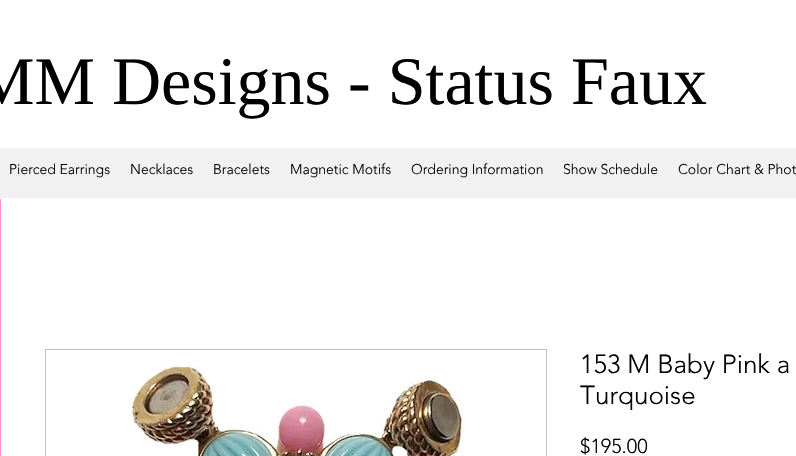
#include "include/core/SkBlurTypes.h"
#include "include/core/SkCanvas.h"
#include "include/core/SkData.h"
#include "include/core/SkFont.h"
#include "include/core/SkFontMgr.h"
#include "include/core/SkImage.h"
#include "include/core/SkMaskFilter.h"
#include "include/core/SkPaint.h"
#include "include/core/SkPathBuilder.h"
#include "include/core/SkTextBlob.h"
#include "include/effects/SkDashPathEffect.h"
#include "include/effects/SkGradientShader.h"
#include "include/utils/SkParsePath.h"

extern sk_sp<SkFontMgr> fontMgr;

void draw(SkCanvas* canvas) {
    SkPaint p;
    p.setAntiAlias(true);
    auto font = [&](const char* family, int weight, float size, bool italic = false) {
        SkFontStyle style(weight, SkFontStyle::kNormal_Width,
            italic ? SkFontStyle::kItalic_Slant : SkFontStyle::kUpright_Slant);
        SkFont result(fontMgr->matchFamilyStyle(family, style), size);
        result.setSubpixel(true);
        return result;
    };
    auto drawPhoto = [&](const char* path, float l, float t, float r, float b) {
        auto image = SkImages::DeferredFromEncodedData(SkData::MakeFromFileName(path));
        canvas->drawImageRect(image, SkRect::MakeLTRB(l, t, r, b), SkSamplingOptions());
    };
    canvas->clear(0xFFFFFFFF);
    auto font1 = font("Liberation Serif", 400, 68);
    p.setColor(0xFF000000);
    canvas->drawString("MM Designs - Status Faux", -26, 104, font1, p);
    p.setColor(0xFFF1F1F1);
    canvas->drawRect(SkRect::MakeLTRB(0, 148, 796, 198), p);
    auto font2 = font("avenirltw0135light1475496", 300, 14);
    p.setColor(0xFF000000);
    {
        const struct { const char* s; float x, y; } items[] = {
            {"Pierced Earrings", 9, 174},
            {"Necklaces", 130, 174},
            {"Bracelets", 213, 174},
            {"Magnetic Motifs", 290, 174},
            {"Ordering Information", 411, 174},
            {"Show Schedule", 563, 174},
            {"Color Chart & Phot", 678, 174},
        };
        for (auto [s, x, y] : items) {
            canvas->drawString(s, x, y, font2, p);
        }
    }
    p.setColor(0xFFFF8AD8);
    canvas->drawRect(SkRect::MakeLTRB(0, 199, 1, 456), p);
    p.setStyle(SkPaint::kStroke_Style);
    p.setStrokeWidth(1);
    p.setColor(0xFFBFBFBF);
    canvas->drawRect(SkRect::MakeLTRB(45.5f, 349.5f, 546.5f, 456.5f), p);
    drawPhoto("media/1.png", 130, 366, 463, 456);
    auto font3 = font("avenirltw0135light1475496", 300, 26);
    p.setStyle(SkPaint::kFill_Style);
    p.setColor(0xFF000000);
    canvas->drawString("153 M Baby Pink a", 580, 373, font3, p);
    canvas->drawString("Turquoise", 580, 404, font3, p);
    auto font4 = font("avenirltw0135light1475496", 300, 20);
    canvas->drawString("$195.00", 580, 453, font4, p);
}
